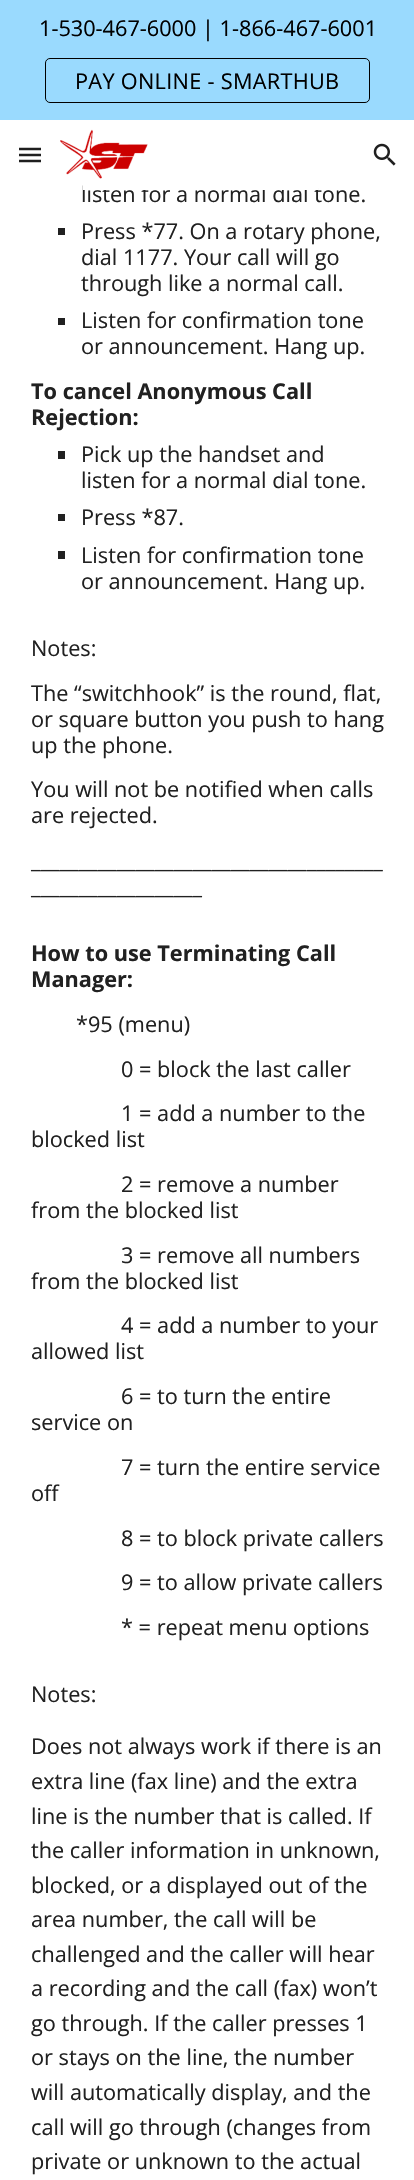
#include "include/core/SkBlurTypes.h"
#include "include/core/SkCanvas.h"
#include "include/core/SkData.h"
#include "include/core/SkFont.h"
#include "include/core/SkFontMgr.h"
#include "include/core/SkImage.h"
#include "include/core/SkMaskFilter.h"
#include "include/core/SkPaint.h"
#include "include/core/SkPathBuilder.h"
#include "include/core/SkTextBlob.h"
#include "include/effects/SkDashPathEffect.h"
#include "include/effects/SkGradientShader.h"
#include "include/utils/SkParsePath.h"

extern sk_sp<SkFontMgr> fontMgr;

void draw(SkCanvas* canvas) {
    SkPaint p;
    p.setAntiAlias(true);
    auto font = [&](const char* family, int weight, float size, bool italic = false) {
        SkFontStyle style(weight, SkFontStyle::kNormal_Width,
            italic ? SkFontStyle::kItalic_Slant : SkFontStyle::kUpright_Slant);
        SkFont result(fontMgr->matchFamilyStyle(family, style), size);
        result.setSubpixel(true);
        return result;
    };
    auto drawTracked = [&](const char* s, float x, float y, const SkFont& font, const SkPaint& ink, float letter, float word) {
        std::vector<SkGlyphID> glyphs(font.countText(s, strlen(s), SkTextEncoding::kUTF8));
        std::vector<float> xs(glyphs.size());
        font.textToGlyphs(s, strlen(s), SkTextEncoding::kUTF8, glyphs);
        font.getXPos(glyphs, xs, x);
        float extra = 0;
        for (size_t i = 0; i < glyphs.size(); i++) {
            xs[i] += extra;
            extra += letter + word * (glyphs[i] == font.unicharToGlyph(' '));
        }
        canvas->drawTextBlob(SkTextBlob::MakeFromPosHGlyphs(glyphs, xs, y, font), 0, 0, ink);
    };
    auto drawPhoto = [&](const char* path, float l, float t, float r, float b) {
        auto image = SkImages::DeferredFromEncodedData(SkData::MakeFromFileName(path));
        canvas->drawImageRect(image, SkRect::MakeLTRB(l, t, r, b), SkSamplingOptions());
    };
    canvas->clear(0xFFFFFFFF);
    p.setColor(0xFF9ADAFE);
    canvas->drawRect(SkRect::MakeLTRB(0, 0, 414, 120), p);
    auto font1 = font("Open Sans", 400, 21.7f);
    p.setColor(0xFF000000);
    canvas->drawString("1-530-467-6000 | 1-866-467-6001", 39, 36, font1, p);
    p.setStyle(SkPaint::kStroke_Style);
    p.setStrokeWidth(1);
    canvas->drawRoundRect(SkRect::MakeLTRB(45.5f, 58.5f, 369.5f, 102.5f), 4.5f, 4.5f, p);
    p.setStyle(SkPaint::kFill_Style);
    drawTracked("PAY ONLINE - SMARTHUB", 75, 89, font1, p, 0.3f, 0);
    p.setStyle(SkPaint::kStroke_Style);
    p.setStrokeWidth(2.5f);
    p.setColor(0xFF1F1F1F);
    canvas->drawPath(SkPathBuilder().moveTo(19, 149).lineTo(41, 149).moveTo(19, 155).lineTo(41, 155).moveTo(19, 161).lineTo(41, 161).detach(), p);
    p.setStyle(SkPaint::kFill_Style);
    p.setColor(0xFF212121);
    canvas->drawString("listen for a normal dial tone.", 81, 202, font1, p);
    p.setColor(0xFFFFFFFF);
    canvas->drawRect(SkRect::MakeLTRB(83, 185, 318, 190), p);
    drawPhoto("media/1.png", 60, 129, 148, 179);
    drawPhoto("media/2.png", 373, 143, 396, 166);
    p.setColor(0xFF212121);
    canvas->drawRect(SkRect::MakeLTRB(58, 228, 65, 235), p);
    {
        const struct { const char* s; float x, y; } items[] = {
            {"Press *77. On a rotary phone,", 81, 239},
            {"dial 1177. Your call will go", 81, 265},
            {"through like a normal call.", 81, 291},
        };
        for (auto [s, x, y] : items) {
            canvas->drawString(s, x, y, font1, p);
        }
    }
    canvas->drawRect(SkRect::MakeLTRB(58, 318, 65, 325), p);
    canvas->drawString("Listen for confirmation tone", 81, 328, font1, p);
    canvas->drawString("or announcement. Hang up.", 81, 354, font1, p);
    auto font2 = font("Open Sans", 700, 21.7f);
    canvas->drawString("To cancel Anonymous Call", 31, 399, font2, p);
    canvas->drawString("Rejection:", 31, 425, font2, p);
    canvas->drawRect(SkRect::MakeLTRB(58, 451, 65, 459), p);
    canvas->drawString("Pick up the handset and", 81, 462, font1, p);
    canvas->drawString("listen for a normal dial tone.", 81, 488, font1, p);
    canvas->drawRect(SkRect::MakeLTRB(58, 514, 65, 521), p);
    canvas->drawString("Press *87.", 81, 525, font1, p);
    canvas->drawRect(SkRect::MakeLTRB(58, 551, 65, 559), p);
    {
        const struct { const char* s; float x, y; } items[] = {
            {"Listen for confirmation tone", 81, 563},
            {"or announcement. Hang up.", 81, 589},
            {"Notes:", 31, 656},
            {"The “switchhook” is the round, flat,", 31, 701},
            {"or square button you push to hang", 31, 727},
            {"up the phone.", 31, 753},
            {"You will not be notified when calls", 31, 797},
            {"are rejected.", 31, 823},
            {"_____________________________________", 31, 868},
            {"__________________", 31, 894},
        };
        for (auto [s, x, y] : items) {
            canvas->drawString(s, x, y, font1, p);
        }
    }
    canvas->drawString("How to use Terminating Call", 31, 961, font2, p);
    canvas->drawString("Manager:", 31, 987, font2, p);
    {
        const struct { const char* s; float x, y; } items[] = {
            {"*95 (menu)", 76, 1032},
            {"0 = block the last caller", 121, 1077},
            {"1 = add a number to the", 121, 1121},
            {"blocked list", 31, 1147},
            {"2 = remove a number", 121, 1192},
            {"from the blocked list", 31, 1218},
            {"3 = remove all numbers", 121, 1263},
            {"from the blocked list", 31, 1289},
            {"4 = add a number to your", 121, 1333},
            {"allowed list", 31, 1359},
            {"6 = to turn the entire", 121, 1404},
            {"service on", 31, 1430},
            {"7 = turn the entire service", 121, 1475},
            {"off", 31, 1501},
            {"8 = to block private callers", 121, 1546},
            {"9 = to allow private callers", 121, 1590},
            {"* = repeat menu options", 121, 1635},
            {"Notes:", 31, 1702},
            {"Does not always work if there is an", 31, 1754},
            {"extra line (fax line) and the extra", 31, 1789},
            {"line is the number that is called. If", 31, 1824},
            {"the caller information in unknown,", 31, 1858},
            {"blocked, or a displayed out of the", 31, 1893},
            {"area number, the call will be", 31, 1927},
            {"challenged and the caller will hear", 31, 1962},
            {"a recording and the call (fax) won’t", 31, 1996},
            {"go through. If the caller presses 1", 31, 2031},
            {"or stays on the line, the number", 31, 2065},
            {"will automatically display, and the", 31, 2100},
            {"call will go through (changes from", 31, 2135},
            {"private or unknown to the actual", 31, 2169},
        };
        for (auto [s, x, y] : items) {
            canvas->drawString(s, x, y, font1, p);
        }
    }
}
